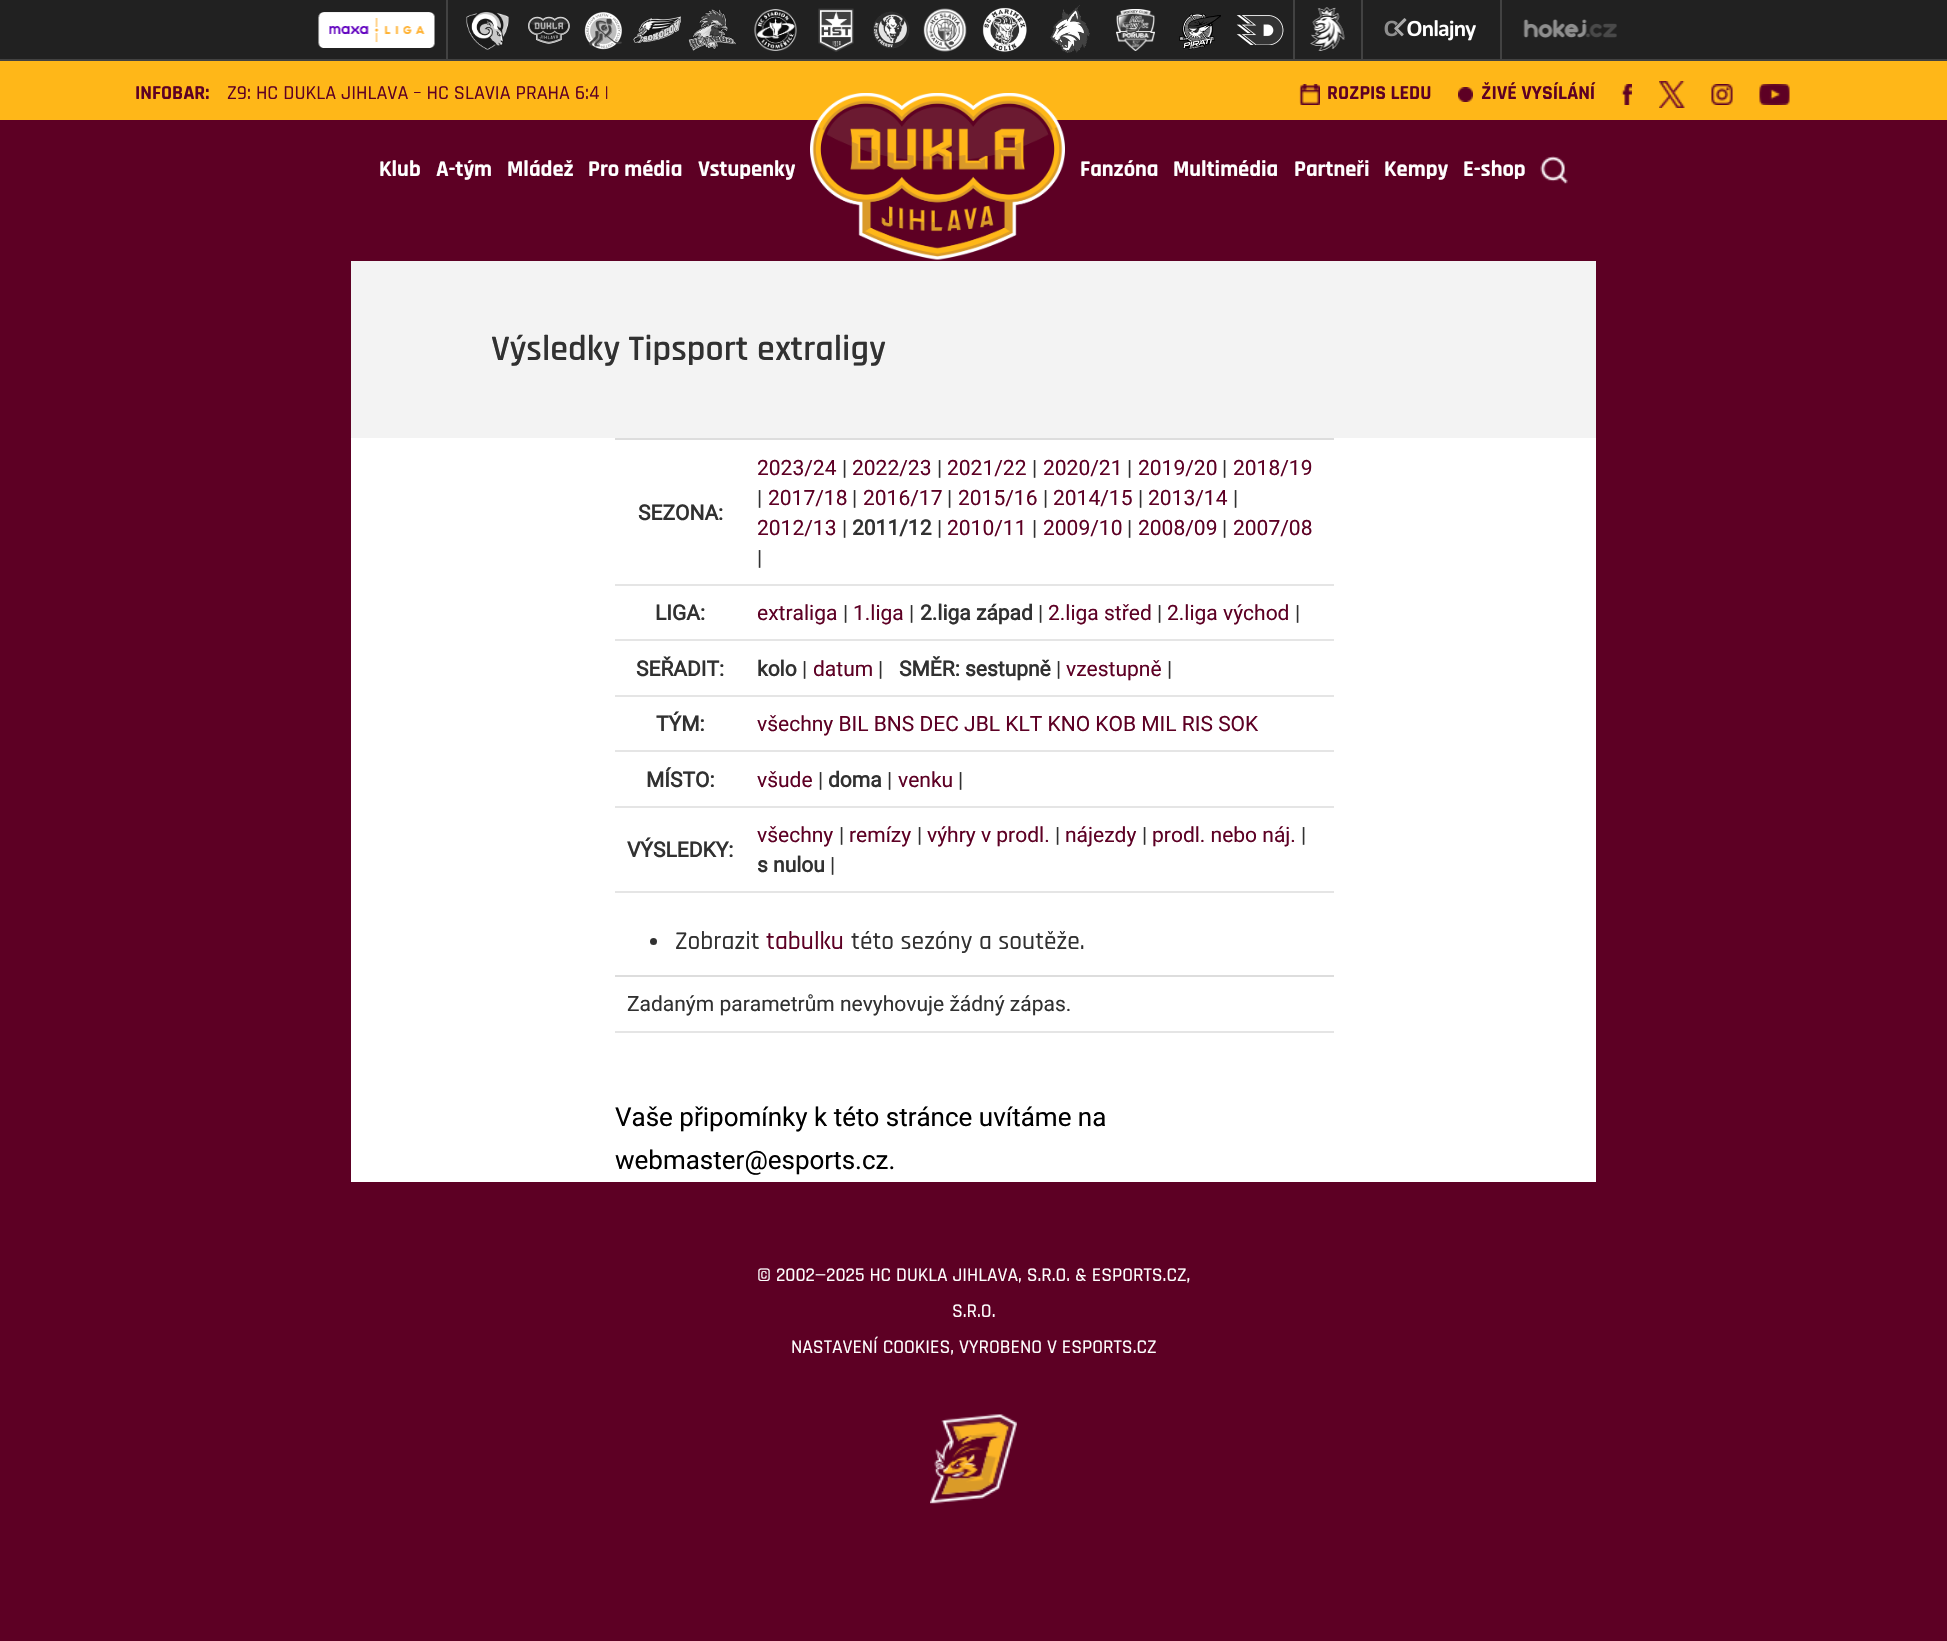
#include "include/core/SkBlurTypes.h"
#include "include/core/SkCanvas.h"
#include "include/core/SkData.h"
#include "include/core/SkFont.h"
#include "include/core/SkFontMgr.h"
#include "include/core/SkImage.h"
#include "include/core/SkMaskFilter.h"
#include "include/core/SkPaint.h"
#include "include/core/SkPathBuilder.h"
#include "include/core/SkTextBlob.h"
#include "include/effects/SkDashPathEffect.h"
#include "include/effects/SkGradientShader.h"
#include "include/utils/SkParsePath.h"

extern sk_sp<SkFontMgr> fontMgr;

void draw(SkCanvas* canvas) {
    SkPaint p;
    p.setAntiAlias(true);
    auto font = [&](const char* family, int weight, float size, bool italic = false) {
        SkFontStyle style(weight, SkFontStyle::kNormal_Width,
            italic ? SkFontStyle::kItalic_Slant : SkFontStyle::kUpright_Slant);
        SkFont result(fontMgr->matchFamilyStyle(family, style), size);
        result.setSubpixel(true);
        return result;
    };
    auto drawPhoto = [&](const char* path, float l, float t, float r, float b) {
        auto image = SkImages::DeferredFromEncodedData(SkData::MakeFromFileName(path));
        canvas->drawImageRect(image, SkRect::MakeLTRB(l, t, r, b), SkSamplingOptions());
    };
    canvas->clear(0xFF5D0024);
    p.setColor(0xFF212121);
    canvas->drawRect(SkRect::MakeLTRB(0, 0, 1947, 59), p);
    p.setColor(0xFF424242);
    canvas->drawRect(SkRect::MakeLTRB(0, 59, 1947, 61), p);
    drawPhoto("media/1.png", 318, 12, 435, 48);
    canvas->drawRect(SkRect::MakeLTRB(446, 0, 448, 60), p);
    drawPhoto("media/2.png", 466, 10, 509, 50);
    drawPhoto("media/3.png", 528, 16, 570, 44);
    drawPhoto("media/4.png", 584, 12, 622, 50);
    drawPhoto("media/5.png", 633, 16, 681, 43);
    drawPhoto("media/6.png", 688, 9, 738, 51);
    drawPhoto("media/7.png", 754, 9, 797, 51);
    drawPhoto("media/8.png", 818, 8, 854, 52);
    drawPhoto("media/9.png", 873, 11, 910, 49);
    drawPhoto("media/10.png", 923, 8, 967, 52);
    drawPhoto("media/11.png", 982, 7, 1027, 52);
    drawPhoto("media/12.png", 1050, 5, 1090, 53);
    drawPhoto("media/13.png", 1116, 9, 1155, 51);
    drawPhoto("media/14.png", 1179, 13, 1221, 50);
    drawPhoto("media/15.png", 1236, 15, 1284, 45);
    canvas->drawRect(SkRect::MakeLTRB(1293, 0, 1295, 60), p);
    drawPhoto("media/16.png", 1310, 7, 1345, 51);
    canvas->drawRect(SkRect::MakeLTRB(1361, 0, 1363, 60), p);
    drawPhoto("media/17.png", 1384, 18, 1476, 41);
    canvas->drawRect(SkRect::MakeLTRB(1500, 0, 1502, 60), p);
    drawPhoto("media/18.png", 1523, 19, 1617, 38);
    p.setColor(0xFFFFB718);
    canvas->drawRect(SkRect::MakeLTRB(0, 61, 1947, 120), p);
    auto font1 = font("Rajdhani", 700, 20);
    p.setColor(0xFF5D0024);
    canvas->drawString("INFOBAR:", 135, 99, font1, p);
    auto font2 = font("Rajdhani", 500, 20);
    canvas->drawString("Z9: HC DUKLA JIHLAVA – HC SLAVIA PRAHA 6:4 |", 227, 99, font2, p);
    drawPhoto("media/19.png", 1299, 84, 1320, 105);
    canvas->drawString("ROZPIS LEDU", 1327, 99, font1, p);
    drawPhoto("media/20.png", 1458, 87, 1473, 102);
    canvas->drawString("ŽIVÉ VYSÍLÁNÍ", 1481, 99, font1, p);
    drawPhoto("media/21.png", 1621, 84, 1632, 105);
    drawPhoto("media/22.png", 1659, 81, 1685, 108);
    drawPhoto("media/23.png", 1711, 84, 1733, 105);
    drawPhoto("media/24.png", 1759, 84, 1790, 105);
    auto font3 = font("Rajdhani", 700, 22.5f);
    p.setColor(0xFFFFFFFF);
    {
        const struct { const char* s; float x, y; } items[] = {
            {"Klub", 379, 176},
            {"A-tým", 436, 176},
            {"Mládež", 507, 176},
            {"Pro média", 588, 176},
            {"Vstupenky", 698, 176},
        };
        for (auto [s, x, y] : items) {
            canvas->drawString(s, x, y, font3, p);
        }
    }
    drawPhoto("media/25.png", 810, 93, 1065, 260);
    {
        const struct { const char* s; float x, y; } items[] = {
            {"Fanzóna", 1080, 176},
            {"Multimédia", 1173, 176},
            {"Partneři", 1294, 176},
            {"Kempy", 1384, 176},
            {"E-shop", 1463, 176},
        };
        for (auto [s, x, y] : items) {
            canvas->drawString(s, x, y, font3, p);
        }
    }
    drawPhoto("media/26.png", 1540, 156, 1568, 184);
    canvas->drawRect(SkRect::MakeLTRB(351, 438, 1596, 1182), p);
    p.setColor(0xFFF3F3F3);
    canvas->drawRect(SkRect::MakeLTRB(351, 261, 1596, 438), p);
    auto font4 = font("Rajdhani", 600, 36);
    p.setColor(0xFF313131);
    canvas->drawString("Výsledky Tipsport extraligy", 491, 360, font4, p);
    auto font5 = font("Roboto", 700, 21);
    canvas->drawString("SEZONA:", 638, 520, font5, p);
    p.setColor(0xFFDDDDDD);
    canvas->drawRect(SkRect::MakeLTRB(615, 438, 1334, 440), p);
    p.setColor(0xFFE5E5E5);
    canvas->drawRect(SkRect::MakeLTRB(615, 584, 1334, 586), p);
    auto font6 = font("Roboto", 400, 21);
    p.setColor(0xFF5D0024);
    canvas->drawString("2023/24", 757, 475, font6, p);
    p.setColor(0xFF313131);
    canvas->drawString("|", 842, 475, font6, p);
    p.setColor(0xFF5D0024);
    canvas->drawString("2022/23", 852, 475, font6, p);
    p.setColor(0xFF313131);
    canvas->drawString("|", 937, 475, font6, p);
    p.setColor(0xFF5D0024);
    canvas->drawString("2021/22", 947, 475, font6, p);
    p.setColor(0xFF313131);
    canvas->drawString("|", 1032, 475, font6, p);
    p.setColor(0xFF5D0024);
    canvas->drawString("2020/21", 1043, 475, font6, p);
    p.setColor(0xFF313131);
    canvas->drawString("|", 1127, 475, font6, p);
    p.setColor(0xFF5D0024);
    canvas->drawString("2019/20", 1138, 475, font6, p);
    p.setColor(0xFF313131);
    canvas->drawString("|", 1222, 475, font6, p);
    p.setColor(0xFF5D0024);
    canvas->drawString("2018/19", 1233, 475, font6, p);
    p.setColor(0xFF313131);
    canvas->drawString("|", 757, 505, font6, p);
    p.setColor(0xFF5D0024);
    canvas->drawString("2017/18", 768, 505, font6, p);
    p.setColor(0xFF313131);
    canvas->drawString("|", 852, 505, font6, p);
    p.setColor(0xFF5D0024);
    canvas->drawString("2016/17", 863, 505, font6, p);
    p.setColor(0xFF313131);
    canvas->drawString("|", 947, 505, font6, p);
    p.setColor(0xFF5D0024);
    canvas->drawString("2015/16", 958, 505, font6, p);
    p.setColor(0xFF313131);
    canvas->drawString("|", 1043, 505, font6, p);
    p.setColor(0xFF5D0024);
    canvas->drawString("2014/15", 1053, 505, font6, p);
    p.setColor(0xFF313131);
    canvas->drawString("|", 1138, 505, font6, p);
    p.setColor(0xFF5D0024);
    canvas->drawString("2013/14", 1148, 505, font6, p);
    p.setColor(0xFF313131);
    canvas->drawString("|", 1233, 505, font6, p);
    p.setColor(0xFF5D0024);
    canvas->drawString("2012/13", 757, 535, font6, p);
    p.setColor(0xFF313131);
    canvas->drawString("|", 842, 535, font6, p);
    canvas->drawString("2011/12", 852, 535, font5, p);
    canvas->drawString("|", 937, 535, font6, p);
    p.setColor(0xFF5D0024);
    canvas->drawString("2010/11", 947, 535, font6, p);
    p.setColor(0xFF313131);
    canvas->drawString("|", 1032, 535, font6, p);
    p.setColor(0xFF5D0024);
    canvas->drawString("2009/10", 1043, 535, font6, p);
    p.setColor(0xFF313131);
    canvas->drawString("|", 1127, 535, font6, p);
    p.setColor(0xFF5D0024);
    canvas->drawString("2008/09", 1138, 535, font6, p);
    p.setColor(0xFF313131);
    canvas->drawString("|", 1222, 535, font6, p);
    p.setColor(0xFF5D0024);
    canvas->drawString("2007/08", 1233, 535, font6, p);
    p.setColor(0xFF313131);
    canvas->drawString("|", 757, 565, font6, p);
    canvas->drawString("LIGA:", 655, 620, font5, p);
    p.setColor(0xFFE5E5E5);
    canvas->drawRect(SkRect::MakeLTRB(615, 639, 1334, 641), p);
    p.setColor(0xFF5D0024);
    canvas->drawString("extraliga", 757, 620, font6, p);
    p.setColor(0xFF313131);
    canvas->drawString("|", 843, 620, font6, p);
    p.setColor(0xFF5D0024);
    canvas->drawString("1.liga", 853, 620, font6, p);
    p.setColor(0xFF313131);
    canvas->drawString("|", 909, 620, font6, p);
    canvas->drawString("2.liga západ", 920, 620, font5, p);
    canvas->drawString("|", 1038, 620, font6, p);
    p.setColor(0xFF5D0024);
    canvas->drawString("2.liga střed", 1048, 620, font6, p);
    p.setColor(0xFF313131);
    canvas->drawString("|", 1157, 620, font6, p);
    p.setColor(0xFF5D0024);
    canvas->drawString("2.liga východ", 1167, 620, font6, p);
    p.setColor(0xFF313131);
    canvas->drawString("|", 1295, 620, font6, p);
    canvas->drawString("SEŘADIT:", 636, 676, font5, p);
    p.setColor(0xFFE5E5E5);
    canvas->drawRect(SkRect::MakeLTRB(615, 695, 1334, 697), p);
    p.setColor(0xFF313131);
    canvas->drawString("kolo", 757, 676, font5, p);
    canvas->drawString("|", 802, 676, font6, p);
    p.setColor(0xFF5D0024);
    canvas->drawString("datum", 813, 676, font6, p);
    p.setColor(0xFF313131);
    canvas->drawString("|", 878, 676, font6, p);
    canvas->drawString("SMĚR: sestupně", 899, 676, font5, p);
    canvas->drawString("|", 1056, 676, font6, p);
    p.setColor(0xFF5D0024);
    canvas->drawString("vzestupně", 1066, 676, font6, p);
    p.setColor(0xFF313131);
    canvas->drawString("|", 1167, 676, font6, p);
    canvas->drawString("TÝM:", 656, 731, font5, p);
    p.setColor(0xFFE5E5E5);
    canvas->drawRect(SkRect::MakeLTRB(615, 750, 1334, 752), p);
    p.setColor(0xFF5D0024);
    canvas->drawString("všechny BIL BNS DEC JBL KLT KNO KOB MIL RIS SOK", 757, 731, font6, p);
    p.setColor(0xFF313131);
    canvas->drawString("MÍSTO:", 646, 787, font5, p);
    p.setColor(0xFFE5E5E5);
    canvas->drawRect(SkRect::MakeLTRB(615, 806, 1334, 808), p);
    p.setColor(0xFF5D0024);
    canvas->drawString("všude", 757, 787, font6, p);
    p.setColor(0xFF313131);
    canvas->drawString("|", 818, 787, font6, p);
    canvas->drawString("doma", 828, 787, font5, p);
    canvas->drawString("|", 887, 787, font6, p);
    p.setColor(0xFF5D0024);
    canvas->drawString("venku", 898, 787, font6, p);
    p.setColor(0xFF313131);
    canvas->drawString("|", 958, 787, font6, p);
    canvas->drawString("VÝSLEDKY:", 627, 857, font5, p);
    p.setColor(0xFFE5E5E5);
    canvas->drawRect(SkRect::MakeLTRB(615, 891, 1334, 893), p);
    p.setColor(0xFF5D0024);
    canvas->drawString("všechny", 757, 842, font6, p);
    p.setColor(0xFF313131);
    canvas->drawString("|", 839, 842, font6, p);
    p.setColor(0xFF5D0024);
    canvas->drawString("remízy", 849, 842, font6, p);
    p.setColor(0xFF313131);
    canvas->drawString("|", 917, 842, font6, p);
    p.setColor(0xFF5D0024);
    canvas->drawString("výhry v prodl.", 927, 842, font6, p);
    p.setColor(0xFF313131);
    canvas->drawString("|", 1055, 842, font6, p);
    p.setColor(0xFF5D0024);
    canvas->drawString("nájezdy", 1065, 842, font6, p);
    p.setColor(0xFF313131);
    canvas->drawString("|", 1142, 842, font6, p);
    p.setColor(0xFF5D0024);
    canvas->drawString("prodl. nebo náj.", 1152, 842, font6, p);
    p.setColor(0xFF313131);
    canvas->drawString("|", 1301, 842, font6, p);
    canvas->drawString("s nulou", 757, 872, font5, p);
    canvas->drawString("|", 830, 872, font6, p);
    canvas->drawCircle(653.5f, 941.5f, 3.5f, p);
    auto font7 = font("Rajdhani", 500, 25.5f);
    canvas->drawString("Zobrazit", 675, 949, font7, p);
    p.setColor(0xFF5D0024);
    canvas->drawString("tabulku", 766, 949, font7, p);
    p.setColor(0xFF313131);
    canvas->drawString("této sezóny a soutěže.", 851, 949, font7, p);
    p.setColor(0xFFDDDDDD);
    canvas->drawRect(SkRect::MakeLTRB(615, 975, 1334, 977), p);
    p.setColor(0xFFE5E5E5);
    canvas->drawRect(SkRect::MakeLTRB(615, 1031, 1334, 1033), p);
    p.setColor(0xFF313131);
    canvas->drawString("Zadaným parametrům nevyhovuje žádný zápas.", 627, 1011, font6, p);
    auto font8 = font("Roboto", 400, 26);
    p.setColor(0xFF000000);
    canvas->drawString("Vaše připomínky k této stránce uvítáme na", 615, 1126, font8, p);
    canvas->drawString("webmaster@esports.cz.", 615, 1169, font8, p);
    auto font9 = font("Rajdhani", 500, 19.5f);
    p.setColor(0xFFFFFFFF);
    {
        const struct { const char* s; float x, y; } items[] = {
            {"© 2002—2025 HC DUKLA JIHLAVA, S.R.O. & ESPORTS.CZ,", 757, 1281},
            {"S.R.O.", 952, 1317},
            {"NASTAVENÍ COOKIES, VYROBENO V ESPORTS.CZ", 791, 1353},
        };
        for (auto [s, x, y] : items) {
            canvas->drawString(s, x, y, font9, p);
        }
    }
    drawPhoto("media/27.png", 930, 1414, 1017, 1504);
}
